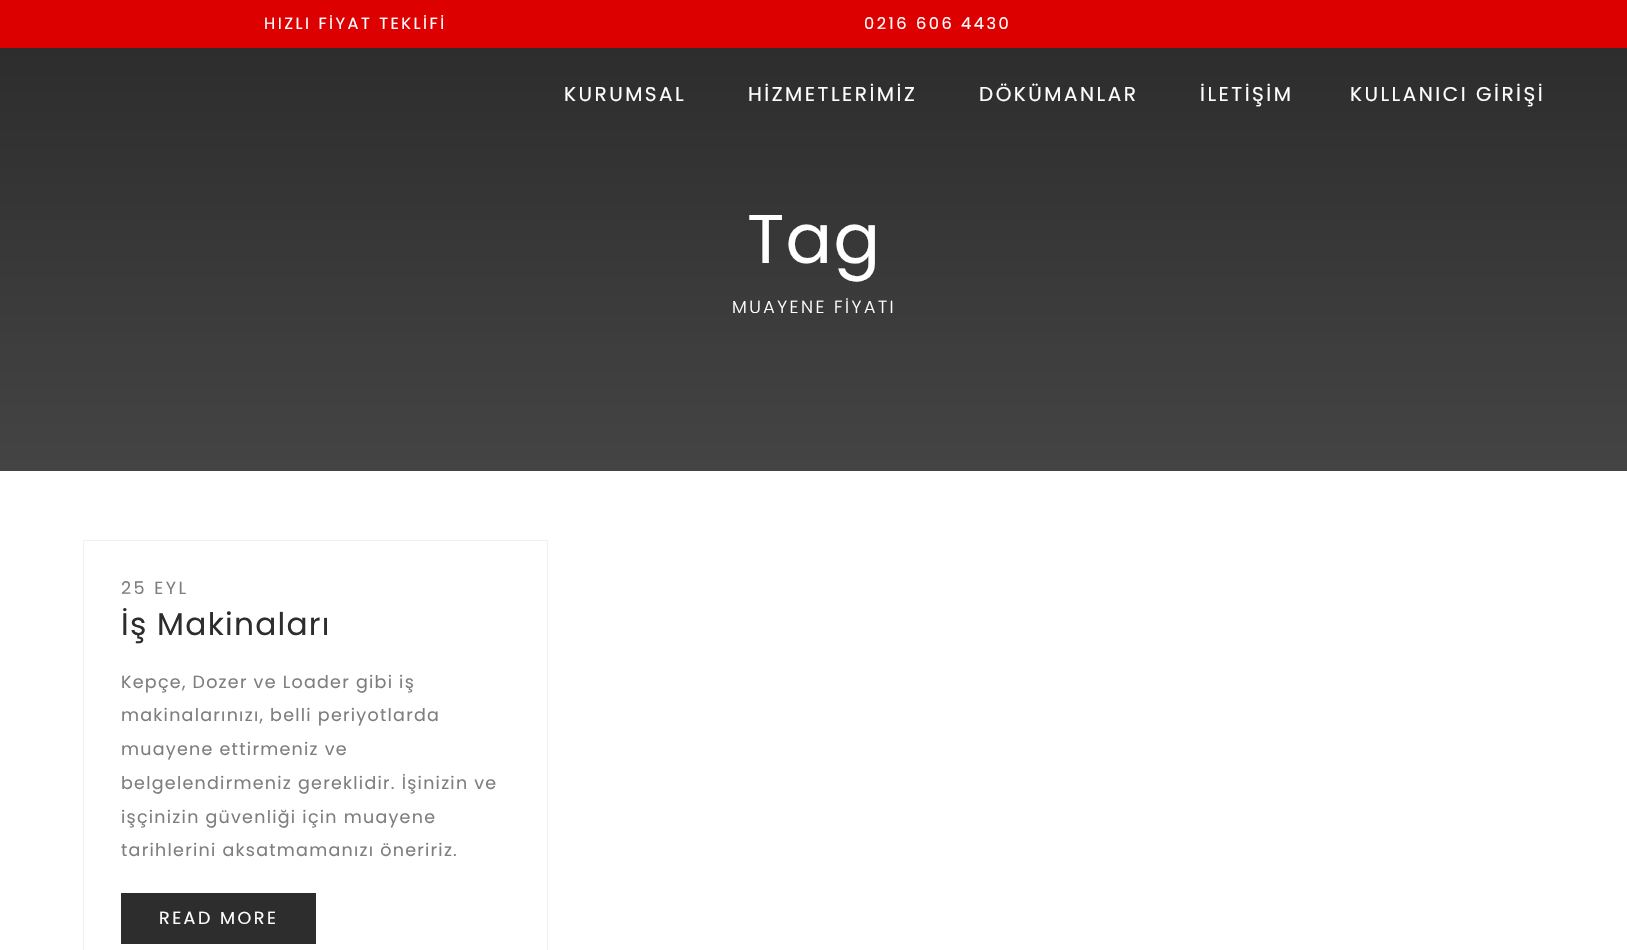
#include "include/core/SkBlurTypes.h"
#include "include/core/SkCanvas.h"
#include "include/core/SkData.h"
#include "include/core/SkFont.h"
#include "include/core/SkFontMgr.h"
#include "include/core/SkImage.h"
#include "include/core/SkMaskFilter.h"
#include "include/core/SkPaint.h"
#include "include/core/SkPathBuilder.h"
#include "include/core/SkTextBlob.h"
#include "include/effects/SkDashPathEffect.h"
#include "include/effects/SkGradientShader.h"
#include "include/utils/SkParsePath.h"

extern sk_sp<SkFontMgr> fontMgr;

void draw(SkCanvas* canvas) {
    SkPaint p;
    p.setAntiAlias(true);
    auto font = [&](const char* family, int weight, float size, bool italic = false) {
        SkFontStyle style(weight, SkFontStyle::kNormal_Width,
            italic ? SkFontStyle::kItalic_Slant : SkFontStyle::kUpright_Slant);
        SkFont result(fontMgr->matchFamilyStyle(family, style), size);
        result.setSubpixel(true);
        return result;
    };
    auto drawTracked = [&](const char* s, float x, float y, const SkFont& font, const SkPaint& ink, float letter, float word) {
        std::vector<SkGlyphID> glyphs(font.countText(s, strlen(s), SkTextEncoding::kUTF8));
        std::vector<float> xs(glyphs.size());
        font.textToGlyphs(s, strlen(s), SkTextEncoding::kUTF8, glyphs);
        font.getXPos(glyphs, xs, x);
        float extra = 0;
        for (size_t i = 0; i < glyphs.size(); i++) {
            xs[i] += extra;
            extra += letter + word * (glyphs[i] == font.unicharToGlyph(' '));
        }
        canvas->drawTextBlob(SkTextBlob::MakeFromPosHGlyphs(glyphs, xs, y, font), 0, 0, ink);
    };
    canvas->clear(0xFFFFFFFF);
    p.setColor(0xFFDD0000);
    canvas->drawRect(SkRect::MakeLTRB(0, 0, 1627, 48), p);
    auto font1 = font("Poppins", 400, 16.25f);
    p.setColor(0xFFFFFFFF);
    drawTracked("HIZLI FİYAT TEKLİFİ", 264, 29, font1, p, 2.5f, 0);
    drawTracked("0216 606 4430", 864, 29, font1, p, 2.5f, 0);
    {
        const SkColor colors[] = {0xFF2D2D2D, 0xFF444444};
        const float stops[] = {0, 1};
        const SkPoint ends[] = {{814, 47}, {814, 471}};
        p.setShader(SkGradientShader::MakeLinear(ends, colors, stops, 2, SkTileMode::kClamp));
        p.setAlpha(255);
    }
    canvas->drawRect(SkRect::MakeLTRB(0, 48, 1627, 471), p);
    auto font2 = font("Poppins", 400, 20);
    p.setShader(nullptr);
    p.setColor(0xFFFFFFFF);
    {
        const struct { const char* s; float x, y; } items[] = {
            {"KURUMSAL", 564, 101},
            {"HİZMETLERİMİZ", 748, 101},
            {"DÖKÜMANLAR", 979, 101},
            {"İLETİŞİM", 1200, 101},
            {"KULLANICI GİRİŞİ", 1350, 101},
        };
        for (auto [s, x, y] : items) {
            drawTracked(s, x, y, font2, p, 2.5f, 0);
        }
    }
    auto font3 = font("Poppins", 400, 69);
    drawTracked("Tag", 747, 263, font3, p, 1.25f, 0);
    auto font4 = font("Poppins", 300, 17.5f);
    drawTracked("MUAYENE FİYATI", 732, 313, font4, p, 2.5f, 0);
    p.setStyle(SkPaint::kStroke_Style);
    p.setStrokeWidth(1);
    p.setColor(0xFFF1F1F1);
    canvas->drawRect(SkRect::MakeLTRB(83.5f, 540.5f, 547.5f, 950.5f), p);
    auto font5 = font("Poppins", 400, 17.5f);
    p.setStyle(SkPaint::kFill_Style);
    p.setColor(0xFF7E7E7E);
    drawTracked("25 EYL", 121, 594, font5, p, 2.5f, 0);
    auto font6 = font("Poppins", 400, 31.25f);
    p.setColor(0xFF2D2D2D);
    drawTracked("İş Makinaları", 121, 635, font6, p, 1.25f, 0);
    p.setColor(0xFF7E7E7E);
    {
        const struct { const char* s; float x, y; } items[] = {
            {"Kepçe, Dozer ve Loader gibi iş", 121, 688},
            {"makinalarınızı, belli periyotlarda", 121, 721},
            {"muayene ettirmeniz ve", 121, 755},
            {"belgelendirmeniz gereklidir. İşinizin ve", 121, 789},
            {"işçinizin güvenliği için muayene", 121, 823},
            {"tarihlerini aksatmamanızı öneririz.", 121, 856},
        };
        for (auto [s, x, y] : items) {
            drawTracked(s, x, y, font5, p, 1.25f, 0);
        }
    }
    p.setColor(0xFF2D2D2D);
    canvas->drawRect(SkRect::MakeLTRB(121, 893, 316, 944), p);
    p.setColor(0xFFFFFFFF);
    drawTracked("READ MORE", 159, 924, font5, p, 2.5f, 0);
}
